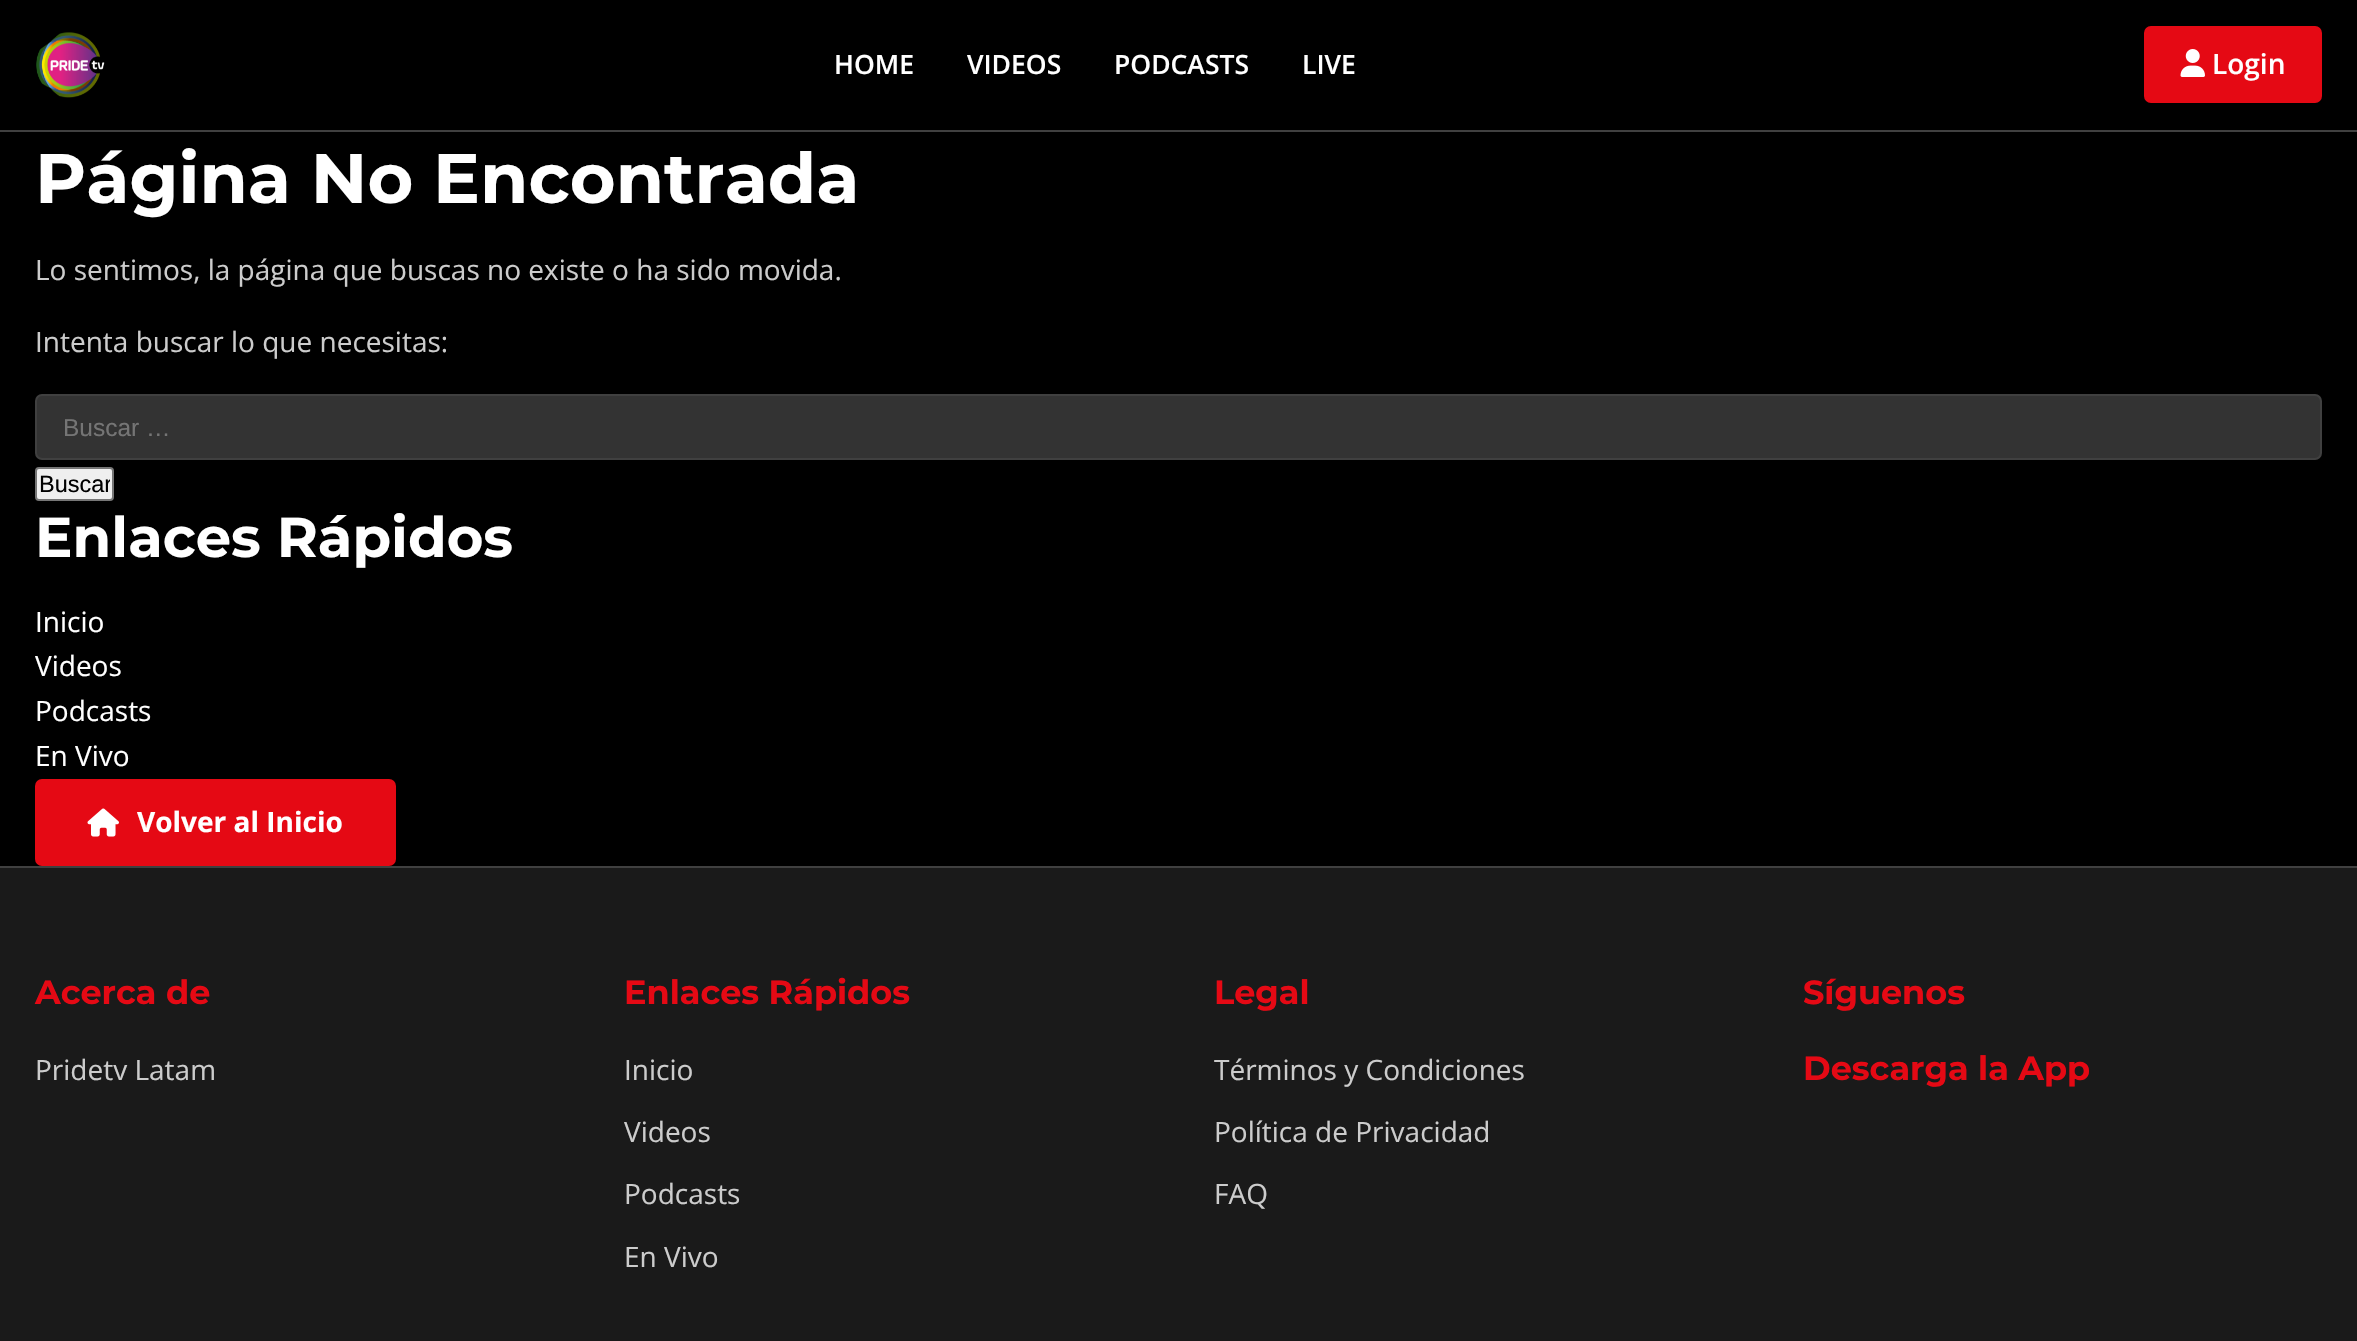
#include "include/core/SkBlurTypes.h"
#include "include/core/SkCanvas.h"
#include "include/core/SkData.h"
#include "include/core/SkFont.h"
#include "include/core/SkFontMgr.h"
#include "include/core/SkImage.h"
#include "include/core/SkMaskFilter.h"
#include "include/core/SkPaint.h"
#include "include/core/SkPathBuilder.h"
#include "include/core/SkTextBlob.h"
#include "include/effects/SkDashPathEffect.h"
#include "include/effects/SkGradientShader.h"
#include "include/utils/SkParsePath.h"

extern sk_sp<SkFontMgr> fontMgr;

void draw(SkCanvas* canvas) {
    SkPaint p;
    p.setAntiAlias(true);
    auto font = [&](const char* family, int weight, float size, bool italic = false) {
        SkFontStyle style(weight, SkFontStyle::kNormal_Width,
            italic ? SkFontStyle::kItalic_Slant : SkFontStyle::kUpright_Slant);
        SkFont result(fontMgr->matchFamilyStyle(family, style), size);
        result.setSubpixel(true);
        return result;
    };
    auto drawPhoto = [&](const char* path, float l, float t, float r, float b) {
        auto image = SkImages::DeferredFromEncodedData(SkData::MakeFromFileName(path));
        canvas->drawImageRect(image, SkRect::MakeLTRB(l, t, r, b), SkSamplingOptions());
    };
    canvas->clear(0xFF000000);
    p.setColor(0xFF404040);
    canvas->drawRect(SkRect::MakeLTRB(0, 130, 2357, 132), p);
    drawPhoto("media/1.png", 36, 32, 105, 98);
    auto font1 = font("Open Sans", 600, 26.5f);
    p.setColor(0xFFFFFFFF);
    {
        const struct { const char* s; float x, y; } items[] = {
            {"HOME", 834, 74},
            {"VIDEOS", 967, 74},
            {"PODCASTS", 1114, 74},
            {"LIVE", 1302, 74},
        };
        for (auto [s, x, y] : items) {
            canvas->drawString(s, x, y, font1, p);
        }
    }
    p.setColor(0xFFE50914);
    canvas->drawRoundRect(SkRect::MakeLTRB(2145, 27, 2321, 102), 6, 6, p);
    p.setStyle(SkPaint::kStroke_Style);
    p.setStrokeWidth(2);
    canvas->drawRoundRect(SkRect::MakeLTRB(2145, 27, 2321, 102), 6, 6, p);
    drawPhoto("media/2.png", 2180, 49, 2205, 77);
    auto font2 = font("Open Sans", 600, 28);
    p.setStyle(SkPaint::kFill_Style);
    p.setColor(0xFFFFFFFF);
    canvas->drawString("Login", 2212, 74, font2, p);
    auto font3 = font("Montserrat", 700, 70);
    canvas->drawString("Página No Encontrada", 35, 203, font3, p);
    auto font4 = font("Open Sans", 400, 28);
    p.setColor(0xFFCCCCCC);
    canvas->drawString("Lo sentimos, la página que buscas no existe o ha sido movida.", 35, 280, font4, p);
    canvas->drawString("Intenta buscar lo que necesitas:", 35, 352, font4, p);
    p.setColor(0xFF333333);
    canvas->drawRoundRect(SkRect::MakeLTRB(36, 395, 2321, 459), 6, 6, p);
    p.setStyle(SkPaint::kStroke_Style);
    p.setColor(0xFF404040);
    canvas->drawRoundRect(SkRect::MakeLTRB(36, 395, 2321, 459), 6, 6, p);
    auto font5 = font("Liberation Sans", 400, 24.5f);
    p.setStyle(SkPaint::kFill_Style);
    p.setColor(0xFF757575);
    canvas->drawString("Buscar …", 63, 436, font5, p);
    p.setColor(0xFFEFEFEF);
    canvas->drawRoundRect(SkRect::MakeLTRB(36, 468, 113, 500), 3, 3, p);
    p.setStyle(SkPaint::kStroke_Style);
    p.setColor(0xFF767676);
    canvas->drawRoundRect(SkRect::MakeLTRB(36, 468, 113, 500), 3, 3, p);
    canvas->save();
    canvas->clipRect(SkRect::MakeLTRB(39, 471, 110, 497));
    auto font6 = font("Liberation Sans", 400, 23.5f);
    p.setStyle(SkPaint::kFill_Style);
    p.setColor(0xFF000000);
    canvas->drawString("Buscar", 39, 492, font6, p);
    canvas->restore();
    auto font7 = font("Montserrat", 700, 56);
    p.setColor(0xFFFFFFFF);
    canvas->drawString("Enlaces Rápidos", 35, 557, font7, p);
    {
        const struct { const char* s; float x, y; } items[] = {
            {"Inicio", 35, 632},
            {"Videos", 35, 676},
            {"Podcasts", 35, 721},
            {"En Vivo", 35, 766},
        };
        for (auto [s, x, y] : items) {
            canvas->drawString(s, x, y, font4, p);
        }
    }
    p.setColor(0xFFE50914);
    canvas->drawRoundRect(SkRect::MakeLTRB(35, 779, 396, 866), 7, 7, p);
    drawPhoto("media/3.png", 87, 808, 119, 837);
    auto font8 = font("Open Sans", 700, 28);
    p.setColor(0xFFFFFFFF);
    canvas->drawString("Volver al Inicio", 137, 832, font8, p);
    p.setColor(0xFF1A1A1A);
    canvas->drawRect(SkRect::MakeLTRB(0, 868, 2357, 1341), p);
    p.setColor(0xFF404040);
    canvas->drawRect(SkRect::MakeLTRB(0, 866, 2357, 868), p);
    auto font9 = font("Montserrat", 700, 33.5f);
    p.setColor(0xFFE50914);
    canvas->drawString("Acerca de", 35, 1004, font9, p);
    p.setColor(0xFFCCCCCC);
    canvas->drawString("Pridetv Latam", 35, 1080, font4, p);
    p.setColor(0xFFE50914);
    canvas->drawString("Enlaces Rápidos", 624, 1004, font9, p);
    p.setColor(0xFFCCCCCC);
    {
        const struct { const char* s; float x, y; } items[] = {
            {"Inicio", 624, 1080},
            {"Videos", 624, 1142},
            {"Podcasts", 624, 1204},
            {"En Vivo", 624, 1267},
        };
        for (auto [s, x, y] : items) {
            canvas->drawString(s, x, y, font4, p);
        }
    }
    p.setColor(0xFFE50914);
    canvas->drawString("Legal", 1214, 1004, font9, p);
    p.setColor(0xFFCCCCCC);
    {
        const struct { const char* s; float x, y; } items[] = {
            {"Términos y Condiciones", 1214, 1080},
            {"Política de Privacidad", 1214, 1142},
            {"FAQ", 1214, 1204},
        };
        for (auto [s, x, y] : items) {
            canvas->drawString(s, x, y, font4, p);
        }
    }
    p.setColor(0xFFE50914);
    canvas->drawString("Síguenos", 1803, 1004, font9, p);
    canvas->drawString("Descarga la App", 1803, 1080, font9, p);
}
